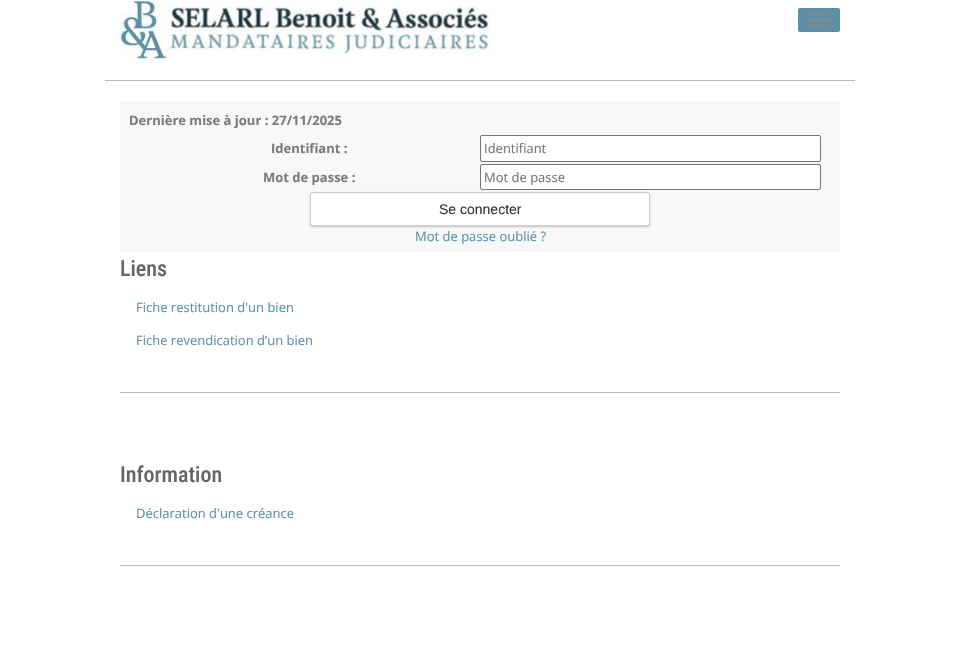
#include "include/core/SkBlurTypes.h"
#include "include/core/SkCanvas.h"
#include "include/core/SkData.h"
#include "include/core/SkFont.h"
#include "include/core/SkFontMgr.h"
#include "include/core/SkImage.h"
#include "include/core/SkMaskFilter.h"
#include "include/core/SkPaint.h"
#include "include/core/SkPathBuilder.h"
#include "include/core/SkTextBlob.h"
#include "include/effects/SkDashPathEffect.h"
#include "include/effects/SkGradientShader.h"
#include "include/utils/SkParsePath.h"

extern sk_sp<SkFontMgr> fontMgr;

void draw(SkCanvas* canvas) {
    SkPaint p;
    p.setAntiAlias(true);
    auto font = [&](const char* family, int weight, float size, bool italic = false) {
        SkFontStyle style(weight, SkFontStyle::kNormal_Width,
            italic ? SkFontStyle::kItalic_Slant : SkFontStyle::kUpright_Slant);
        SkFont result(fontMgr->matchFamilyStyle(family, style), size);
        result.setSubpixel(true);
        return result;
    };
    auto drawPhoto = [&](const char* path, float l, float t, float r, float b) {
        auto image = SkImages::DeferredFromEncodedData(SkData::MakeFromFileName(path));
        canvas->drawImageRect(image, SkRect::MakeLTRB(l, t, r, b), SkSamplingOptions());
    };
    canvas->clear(0xFFFFFFFF);
    p.setColor(0xFFB2BFCA);
    canvas->drawRect(SkRect::MakeLTRB(105, 80, 855, 81), p);
    drawPhoto("media/1.png", 120, 0, 168, 60);
    drawPhoto("media/2.png", 168, 6, 490, 54);
    p.setColor(0xFF5C90A8);
    canvas->drawRoundRect(SkRect::MakeLTRB(798, 8, 840, 32), 2, 2, p);
    p.setColor(0xFF888888);
    canvas->drawRoundRect(SkRect::MakeLTRB(808, 13, 830, 15), 1, 1, p);
    canvas->drawRoundRect(SkRect::MakeLTRB(808, 19, 830, 21), 1, 1, p);
    canvas->drawRoundRect(SkRect::MakeLTRB(808, 25, 830, 27), 1, 1, p);
    p.setColor(0xFFF8F8F8);
    canvas->drawRect(SkRect::MakeLTRB(120, 101, 840, 252), p);
    auto font1 = font("Open Sans", 700, 13);
    p.setColor(0xFF7B7B7B);
    canvas->drawString("Dernière mise à jour : 27/11/2025", 129, 125, font1, p);
    canvas->drawString("Identifiant :", 271, 153, font1, p);
    p.setColor(0xFFFFFFFF);
    canvas->drawRoundRect(SkRect::MakeLTRB(480.5f, 135.5f, 820.5f, 161.5f), 1.5f, 1.5f, p);
    p.setStyle(SkPaint::kStroke_Style);
    p.setStrokeWidth(1);
    p.setColor(0xFF767676);
    canvas->drawRoundRect(SkRect::MakeLTRB(480.5f, 135.5f, 820.5f, 161.5f), 1.5f, 1.5f, p);
    auto font2 = font("Open Sans", 400, 13);
    p.setStyle(SkPaint::kFill_Style);
    p.setColor(0xFF757575);
    canvas->drawString("Identifiant", 484, 153, font2, p);
    p.setColor(0xFF7B7B7B);
    canvas->drawString("Mot de passe :", 263, 182, font1, p);
    p.setColor(0xFFFFFFFF);
    canvas->drawRoundRect(SkRect::MakeLTRB(480.5f, 164.5f, 820.5f, 189.5f), 1.5f, 1.5f, p);
    p.setStyle(SkPaint::kStroke_Style);
    p.setColor(0xFF767676);
    canvas->drawRoundRect(SkRect::MakeLTRB(480.5f, 164.5f, 820.5f, 189.5f), 1.5f, 1.5f, p);
    p.setStyle(SkPaint::kFill_Style);
    p.setColor(0xFF757575);
    canvas->drawString("Mot de passe", 484, 182, font2, p);
    p.setColor(0x33000000);
    p.setMaskFilter(SkMaskFilter::MakeBlur(kNormal_SkBlurStyle, 1));
    canvas->drawRoundRect(SkRect::MakeLTRB(310, 193, 650, 227), 2, 2, p);
    p.setMaskFilter(nullptr);
    p.setColor(0xFFFFFFFF);
    canvas->drawRoundRect(SkRect::MakeLTRB(310.5f, 192.5f, 649.5f, 225.5f), 1.5f, 1.5f, p);
    p.setStyle(SkPaint::kStroke_Style);
    p.setColor(0xFFCCCCCC);
    canvas->drawRoundRect(SkRect::MakeLTRB(310.5f, 192.5f, 649.5f, 225.5f), 1.5f, 1.5f, p);
    auto font3 = font("Liberation Sans", 400, 14);
    p.setStyle(SkPaint::kFill_Style);
    p.setColor(0xFF333333);
    canvas->drawString("Se connecter", 439, 214, font3, p);
    p.setColor(0xFF5C90A8);
    canvas->drawString("Mot de passe oublié ?", 415, 241, font2, p);
    p.setColor(0xFFB2BFCA);
    canvas->drawRect(SkRect::MakeLTRB(120, 392, 840, 393), p);
    auto font4 = font("Roboto Condensed", 500, 22);
    p.setColor(0xFF656565);
    canvas->drawString("Liens", 120, 276, font4, p);
    p.setColor(0xFF5C90A8);
    canvas->drawString("Fiche restitution d'un bien", 136, 312, font2, p);
    canvas->drawString("Fiche revendication d’un bien", 136, 345, font2, p);
    p.setColor(0xFFB2BFCA);
    canvas->drawRect(SkRect::MakeLTRB(120, 565, 840, 566), p);
    p.setColor(0xFF656565);
    canvas->drawString("Information", 120, 482, font4, p);
    p.setColor(0xFF5C90A8);
    canvas->drawString("Déclaration d'une créance", 136, 518, font2, p);
}
